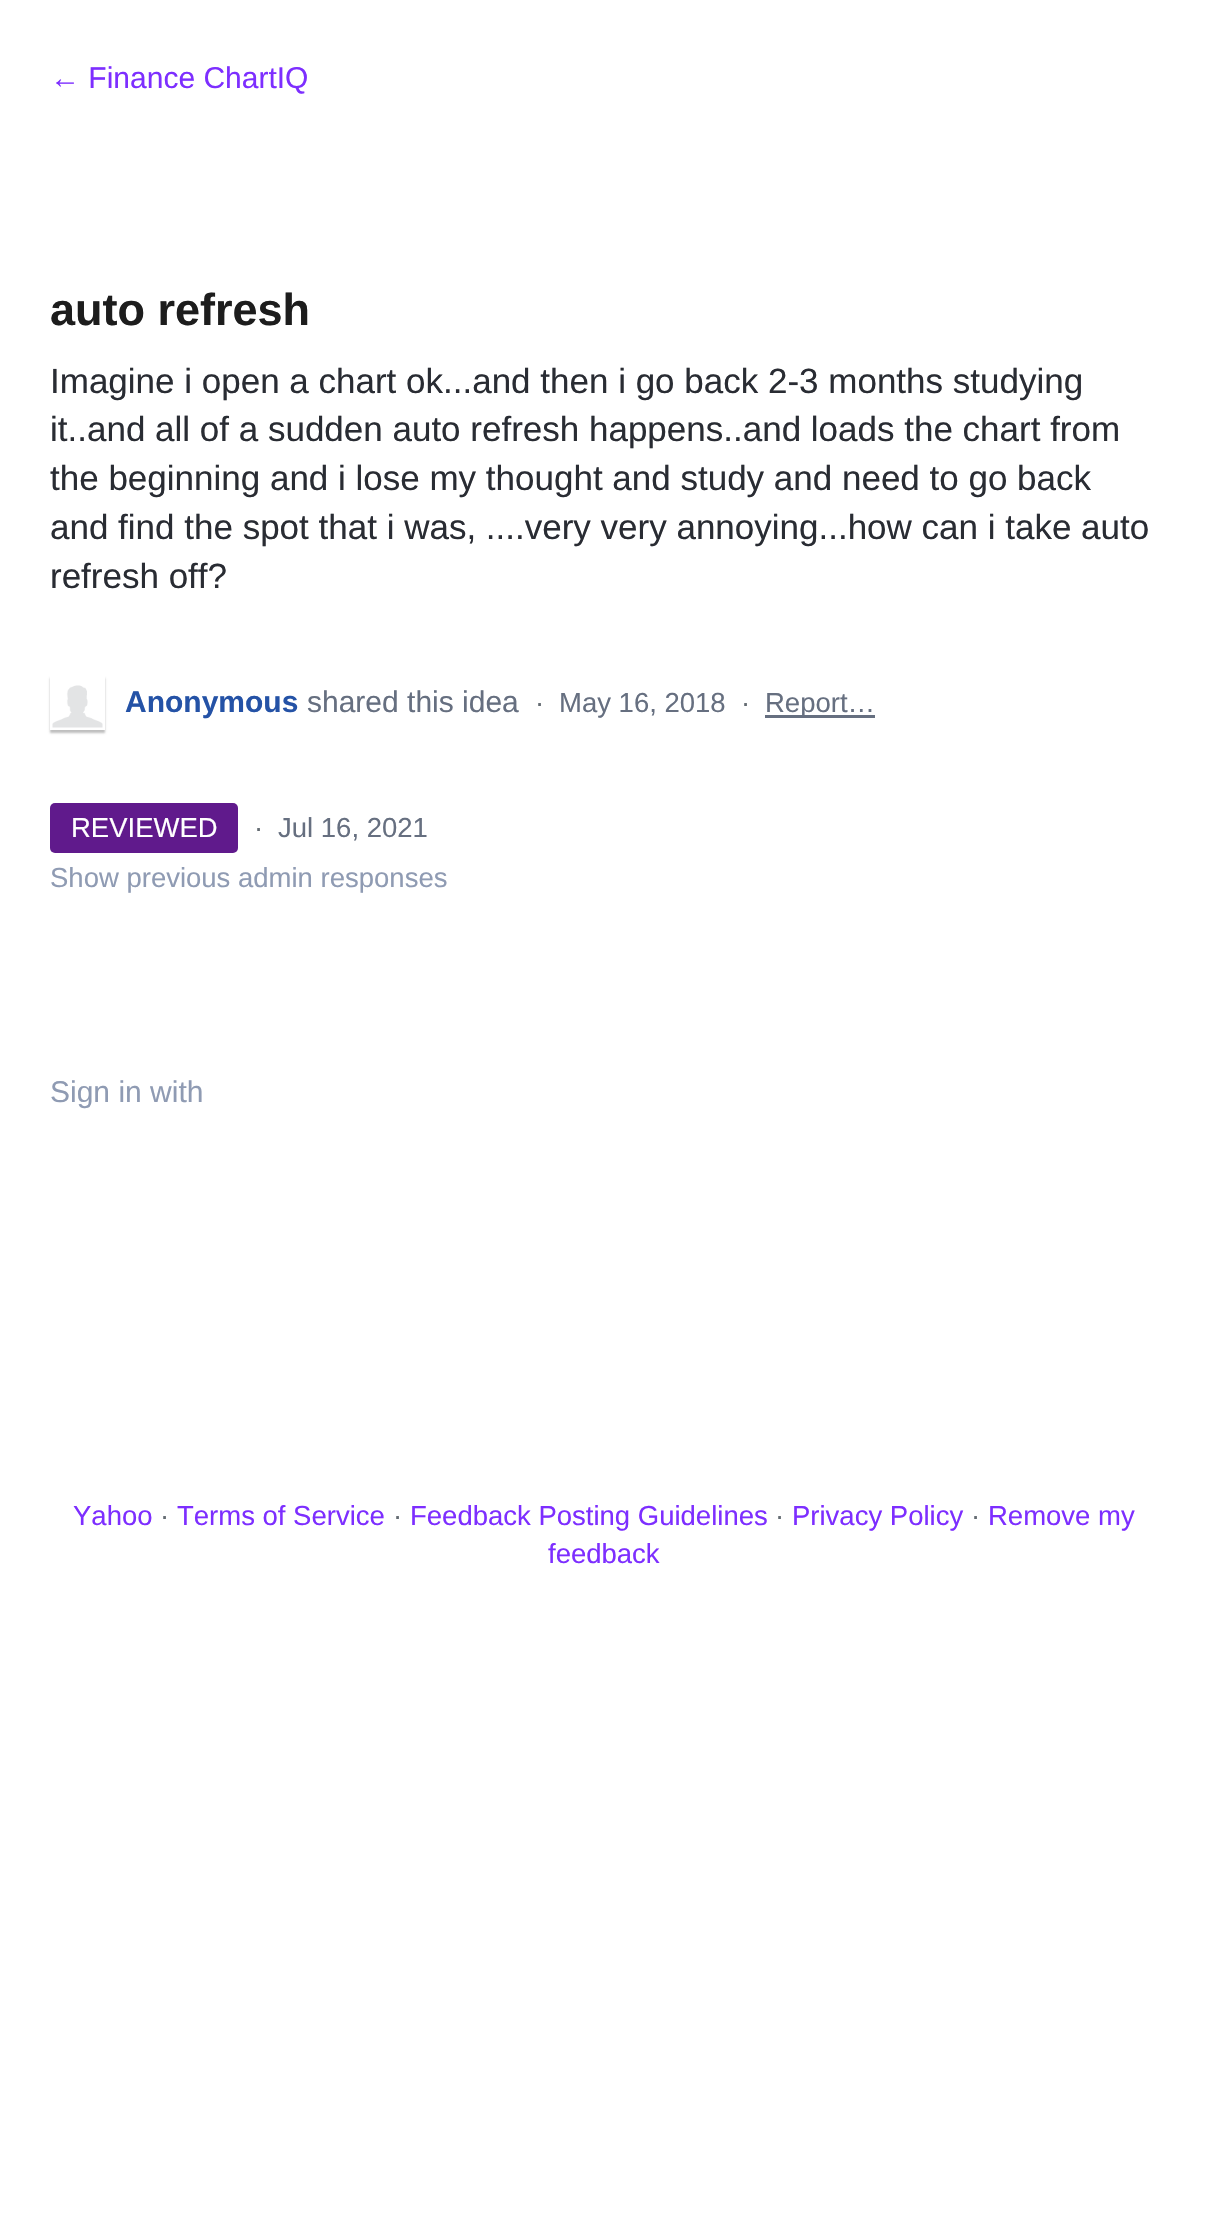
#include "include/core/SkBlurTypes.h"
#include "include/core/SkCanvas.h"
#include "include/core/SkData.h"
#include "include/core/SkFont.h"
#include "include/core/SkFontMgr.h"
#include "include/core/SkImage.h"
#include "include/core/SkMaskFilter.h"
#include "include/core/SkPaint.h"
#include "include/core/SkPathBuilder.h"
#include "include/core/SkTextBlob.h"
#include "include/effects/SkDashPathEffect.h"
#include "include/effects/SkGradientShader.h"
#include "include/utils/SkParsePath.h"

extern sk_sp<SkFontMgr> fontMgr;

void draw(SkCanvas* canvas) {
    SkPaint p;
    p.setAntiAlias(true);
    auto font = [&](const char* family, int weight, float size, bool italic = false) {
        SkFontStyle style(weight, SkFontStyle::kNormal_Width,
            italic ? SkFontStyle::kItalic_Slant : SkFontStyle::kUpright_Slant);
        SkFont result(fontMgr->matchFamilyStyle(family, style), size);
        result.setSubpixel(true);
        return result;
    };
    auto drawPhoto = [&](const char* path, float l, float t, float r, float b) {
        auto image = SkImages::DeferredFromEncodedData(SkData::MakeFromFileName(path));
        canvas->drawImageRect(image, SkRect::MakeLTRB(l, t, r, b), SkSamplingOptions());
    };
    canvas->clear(0xFFFFFFFF);
    auto font1 = font("Liberation Sans", 400, 30);
    p.setColor(0xFF7D2EFF);
    canvas->drawString("← Finance ChartIQ", 50, 88, font1, p);
    auto font2 = font("Liberation Sans", 700, 45);
    p.setColor(0xFF1D1D1D);
    canvas->drawString("auto refresh", 50, 325, font2, p);
    auto font3 = font("Liberation Sans", 400, 35);
    p.setColor(0xFF292C33);
    {
        const struct { const char* s; float x, y; } items[] = {
            {"Imagine i open a chart ok...and then i go back 2-3 months studying", 50, 393},
            {"it..and all of a sudden auto refresh happens..and loads the chart from", 50, 441},
            {"the beginning and i lose my thought and study and need to go back", 50, 490},
            {"and find the spot that i was, ....very very annoying...how can i take auto", 50, 539},
            {"refresh off?", 50, 588},
        };
        for (auto [s, x, y] : items) {
            canvas->drawString(s, x, y, font3, p);
        }
    }
    canvas->save();
    canvas->clipPath(SkPathBuilder(SkPathFillType::kEvenOdd).moveTo(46, 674).lineTo(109, 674).lineTo(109, 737).lineTo(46, 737).close().moveTo(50, 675).lineTo(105, 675).lineTo(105, 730).lineTo(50, 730).close().detach(), true);
    p.setColor(0x40000000);
    p.setMaskFilter(SkMaskFilter::MakeBlur(kNormal_SkBlurStyle, 1));
    canvas->drawRect(SkRect::MakeLTRB(50, 678, 105, 733), p);
    p.setMaskFilter(nullptr);
    canvas->restore();
    drawPhoto("media/1.png", 52, 685, 103, 728);
    auto font4 = font("Liberation Sans", 700, 30);
    p.setColor(0xFF2452A6);
    canvas->drawString("Anonymous", 125, 712, font4, p);
    p.setColor(0xFF666F80);
    canvas->drawString("shared this idea", 307, 712, font1, p);
    auto font5 = font("Liberation Sans", 400, 27.5f);
    p.setColor(0xFF646B72);
    canvas->drawString("·", 535, 712, font5, p);
    p.setColor(0xFF666F80);
    canvas->drawString("May 16, 2018", 559, 712, font5, p);
    p.setColor(0xFF646B72);
    canvas->drawString("·", 741, 712, font5, p);
    p.setColor(0xFF666F80);
    canvas->drawRect(SkRect::MakeLTRB(765, 715, 875, 718), p);
    canvas->drawString("Report…", 765, 712, font5, p);
    p.setColor(0xFF601A8C);
    canvas->drawRoundRect(SkRect::MakeLTRB(50, 803, 238, 853), 5, 5, p);
    p.setColor(0xFFFFFFFF);
    canvas->drawString("REVIEWED", 71, 837, font5, p);
    p.setColor(0xFF646B72);
    canvas->drawString("·", 254, 837, font5, p);
    p.setColor(0xFF666F80);
    canvas->drawString("Jul 16, 2021", 278, 837, font5, p);
    p.setColor(0xFF8F9BB3);
    canvas->drawString("Show previous admin responses", 50, 887, font5, p);
    canvas->drawString("Sign in with", 50, 1102, font1, p);
    p.setColor(0xFF7D2EFF);
    canvas->drawString("Yahoo", 73, 1525, font5, p);
    p.setColor(0xFF646B72);
    canvas->drawString("·", 160, 1525, font5, p);
    p.setColor(0xFF7D2EFF);
    canvas->drawString("Terms of Service", 177, 1525, font5, p);
    p.setColor(0xFF646B72);
    canvas->drawString("·", 393, 1525, font5, p);
    p.setColor(0xFF7D2EFF);
    canvas->drawString("Feedback Posting Guidelines", 410, 1525, font5, p);
    p.setColor(0xFF646B72);
    canvas->drawString("·", 775, 1525, font5, p);
    p.setColor(0xFF7D2EFF);
    canvas->drawString("Privacy Policy", 792, 1525, font5, p);
    p.setColor(0xFF646B72);
    canvas->drawString("·", 971, 1525, font5, p);
    p.setColor(0xFF7D2EFF);
    canvas->drawString("Remove my", 988, 1525, font5, p);
    canvas->drawString("feedback", 548, 1563, font5, p);
}
